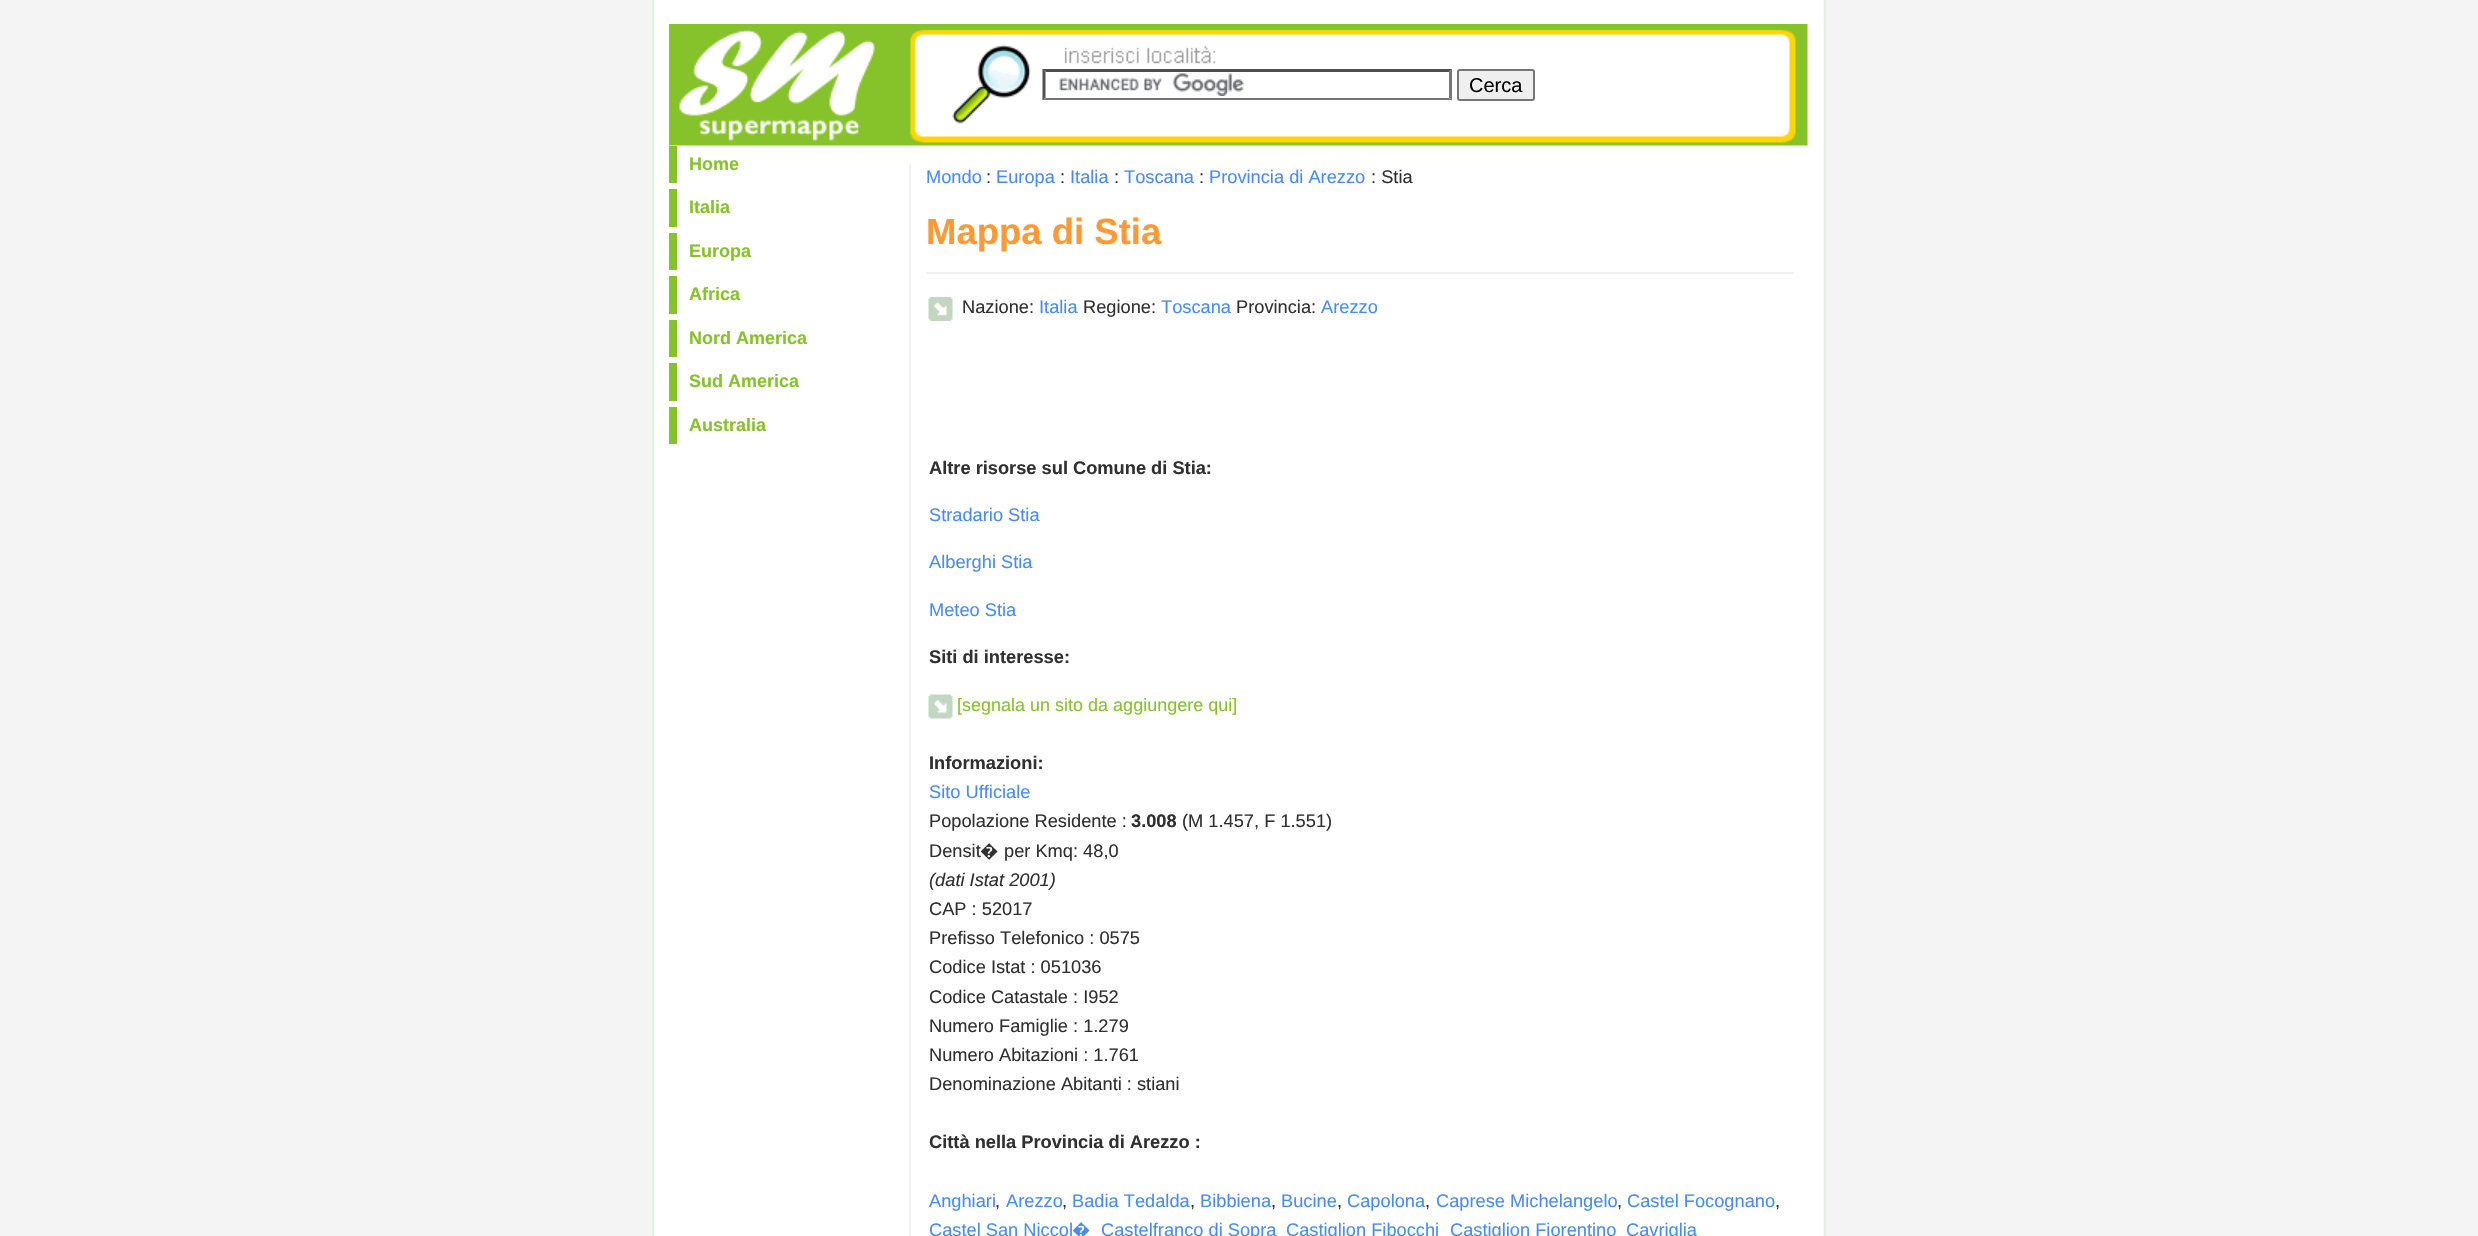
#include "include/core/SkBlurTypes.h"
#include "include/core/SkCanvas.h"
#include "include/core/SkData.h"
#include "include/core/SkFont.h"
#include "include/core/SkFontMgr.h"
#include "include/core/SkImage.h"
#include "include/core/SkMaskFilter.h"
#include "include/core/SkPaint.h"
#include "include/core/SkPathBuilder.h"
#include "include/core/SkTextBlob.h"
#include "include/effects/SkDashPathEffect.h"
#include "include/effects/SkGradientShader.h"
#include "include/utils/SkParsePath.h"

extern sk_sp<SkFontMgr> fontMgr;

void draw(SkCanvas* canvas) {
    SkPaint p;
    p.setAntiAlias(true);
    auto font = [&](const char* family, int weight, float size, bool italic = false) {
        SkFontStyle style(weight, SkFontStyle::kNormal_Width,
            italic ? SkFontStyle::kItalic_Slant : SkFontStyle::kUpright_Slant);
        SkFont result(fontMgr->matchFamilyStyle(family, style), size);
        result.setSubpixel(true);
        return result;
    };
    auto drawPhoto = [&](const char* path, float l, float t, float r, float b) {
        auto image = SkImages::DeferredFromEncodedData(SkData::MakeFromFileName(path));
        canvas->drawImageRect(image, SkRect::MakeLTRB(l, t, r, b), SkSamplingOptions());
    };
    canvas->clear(0xFFF4F4F4);
    drawPhoto("media/1.png", 652, 0, 1826, 1236);
    drawPhoto("media/2.png", 669, 24, 894, 146);
    drawPhoto("media/3.png", 894, 24, 1808, 146);
    drawPhoto("media/4.png", 1059, 73, 1244, 96);
    p.setColor(0xFF4F4F4F);
    canvas->drawPath(SkPathBuilder().moveTo(1042, 69).lineTo(1452, 69).lineTo(1449, 72).lineTo(1046, 72).close().detach(), p);
    p.setColor(0xFF767676);
    canvas->drawPath(SkPathBuilder().moveTo(1452, 69).lineTo(1452, 100.5f).lineTo(1449, 97.5f).lineTo(1449, 72).close().detach(), p);
    canvas->drawPath(SkPathBuilder().moveTo(1452, 100).lineTo(1042, 100).lineTo(1046, 98).lineTo(1449, 98).close().detach(), p);
    p.setColor(0xFF4F4F4F);
    canvas->drawPath(SkPathBuilder().moveTo(1042.5f, 100.5f).lineTo(1042.5f, 69).lineTo(1045.5f, 72).lineTo(1045.5f, 97.5f).close().detach(), p);
    p.setColor(0xFFEFEFEF);
    canvas->drawRoundRect(SkRect::MakeLTRB(1458, 70, 1534, 100), 2, 2, p);
    p.setStyle(SkPaint::kStroke_Style);
    p.setStrokeWidth(2);
    p.setColor(0xFF767676);
    canvas->drawRoundRect(SkRect::MakeLTRB(1458, 70, 1534, 100), 2, 2, p);
    auto font1 = font("Liberation Sans", 400, 20);
    p.setStyle(SkPaint::kFill_Style);
    p.setColor(0xFF000000);
    canvas->drawString("Cerca", 1469, 92, font1, p);
    p.setColor(0xFF86C32A);
    canvas->drawRect(SkRect::MakeLTRB(669, 146, 677, 183), p);
    auto font2 = font("Liberation Sans", 700, 18);
    canvas->drawString("Home", 689, 170, font2, p);
    canvas->drawRect(SkRect::MakeLTRB(669, 189, 677, 227), p);
    canvas->drawString("Italia", 689, 213, font2, p);
    canvas->drawRect(SkRect::MakeLTRB(669, 233, 677, 270), p);
    canvas->drawString("Europa", 689, 257, font2, p);
    canvas->drawRect(SkRect::MakeLTRB(669, 276, 677, 314), p);
    canvas->drawString("Africa", 689, 300, font2, p);
    canvas->drawRect(SkRect::MakeLTRB(669, 320, 677, 357), p);
    canvas->drawString("Nord America", 689, 344, font2, p);
    canvas->drawRect(SkRect::MakeLTRB(669, 363, 677, 401), p);
    canvas->drawString("Sud America", 689, 387, font2, p);
    canvas->drawRect(SkRect::MakeLTRB(669, 407, 677, 444), p);
    canvas->drawString("Australia", 689, 431, font2, p);
    p.setColor(0xFFF0F0F0);
    canvas->drawRect(SkRect::MakeLTRB(909, 164, 911, 1236), p);
    auto font3 = font("Liberation Sans", 400, 18.25f);
    p.setColor(0xFF488CF2);
    canvas->drawString("Mondo", 926, 183, font3, p);
    p.setColor(0xFF303030);
    canvas->drawString(":", 986, 183, font3, p);
    p.setColor(0xFF488CF2);
    canvas->drawString("Europa", 996, 183, font3, p);
    p.setColor(0xFF303030);
    canvas->drawString(":", 1060, 183, font3, p);
    p.setColor(0xFF488CF2);
    canvas->drawString("Italia", 1070, 183, font3, p);
    p.setColor(0xFF303030);
    canvas->drawString(":", 1114, 183, font3, p);
    p.setColor(0xFF488CF2);
    canvas->drawString("Toscana", 1124, 183, font3, p);
    p.setColor(0xFF303030);
    canvas->drawString(":", 1199, 183, font3, p);
    p.setColor(0xFF488CF2);
    canvas->drawString("Provincia di Arezzo", 1209, 183, font3, p);
    p.setColor(0xFF303030);
    canvas->drawString(": Stia", 1371, 183, font3, p);
    auto font4 = font("Liberation Sans", 700, 36.5f);
    p.setColor(0xFFFF9933);
    canvas->drawString("Mappa di Stia", 926, 244, font4, p);
    p.setColor(0xFFF0F0F0);
    canvas->drawRect(SkRect::MakeLTRB(926, 272, 1794, 274), p);
    drawPhoto("media/5.png", 928, 297, 953, 321);
    p.setColor(0xFF303030);
    canvas->drawString("Nazione:", 962, 313, font3, p);
    p.setColor(0xFF488CF2);
    canvas->drawString("Italia", 1039, 313, font3, p);
    p.setColor(0xFF303030);
    canvas->drawString("Regione:", 1083, 313, font3, p);
    p.setColor(0xFF488CF2);
    canvas->drawString("Toscana", 1161, 313, font3, p);
    p.setColor(0xFF303030);
    canvas->drawString("Provincia:", 1236, 313, font3, p);
    p.setColor(0xFF488CF2);
    canvas->drawString("Arezzo", 1321, 313, font3, p);
    auto font5 = font("Liberation Sans", 700, 18.25f);
    p.setColor(0xFF303030);
    canvas->drawString("Altre risorse sul Comune di Stia:", 929, 474, font5, p);
    p.setColor(0xFF488CF2);
    {
        const struct { const char* s; float x, y; } items[] = {
            {"Stradario Stia", 929, 521},
            {"Alberghi Stia", 929, 568},
            {"Meteo Stia", 929, 616},
        };
        for (auto [s, x, y] : items) {
            canvas->drawString(s, x, y, font3, p);
        }
    }
    p.setColor(0xFF303030);
    canvas->drawString("Siti di interesse:", 929, 663, font5, p);
    drawPhoto("media/6.png", 928, 694, 953, 719);
    auto font6 = font("Liberation Sans", 400, 18);
    p.setColor(0xFF86C32A);
    canvas->drawString("[segnala un sito da aggiungere qui]", 957, 711, font6, p);
    p.setColor(0xFF303030);
    canvas->drawString("Informazioni:", 929, 769, font5, p);
    p.setColor(0xFF488CF2);
    canvas->drawString("Sito Ufficiale", 929, 798, font3, p);
    p.setColor(0xFF303030);
    canvas->drawString("Popolazione Residente :", 929, 827, font3, p);
    canvas->drawString("3.008", 1131, 827, font5, p);
    canvas->drawString("(M 1.457, F 1.551)", 1182, 827, font3, p);
    canvas->drawString("Densit", 929, 857, font3, p);
    auto font7 = font("Noto Sans", 400, 18.25f);
    canvas->drawString("�", 980, 857, font7, p);
    canvas->drawString("per Kmq: 48,0", 1004, 857, font3, p);
    auto font8 = font("Liberation Sans", 400, 18.25f, true);
    canvas->drawString("(dati Istat 2001)", 929, 886, font8, p);
    {
        const struct { const char* s; float x, y; } items[] = {
            {"CAP : 52017", 929, 915},
            {"Prefisso Telefonico : 0575", 929, 944},
            {"Codice Istat : 051036", 929, 973},
            {"Codice Catastale : I952", 929, 1003},
            {"Numero Famiglie : 1.279", 929, 1032},
            {"Numero Abitazioni : 1.761", 929, 1061},
            {"Denominazione Abitanti : stiani", 929, 1090},
        };
        for (auto [s, x, y] : items) {
            canvas->drawString(s, x, y, font3, p);
        }
    }
    canvas->drawString("Città nella Provincia di Arezzo :", 929, 1148, font5, p);
    p.setColor(0xFF488CF2);
    canvas->drawString("Anghiari", 929, 1207, font3, p);
    p.setColor(0xFF303030);
    canvas->drawString(",", 995, 1207, font3, p);
    p.setColor(0xFF488CF2);
    canvas->drawString("Arezzo", 1006, 1207, font3, p);
    p.setColor(0xFF303030);
    canvas->drawString(",", 1062, 1207, font3, p);
    p.setColor(0xFF488CF2);
    canvas->drawString("Badia Tedalda", 1072, 1207, font3, p);
    p.setColor(0xFF303030);
    canvas->drawString(",", 1190, 1207, font3, p);
    p.setColor(0xFF488CF2);
    canvas->drawString("Bibbiena", 1200, 1207, font3, p);
    p.setColor(0xFF303030);
    canvas->drawString(",", 1271, 1207, font3, p);
    p.setColor(0xFF488CF2);
    canvas->drawString("Bucine", 1281, 1207, font3, p);
    p.setColor(0xFF303030);
    canvas->drawString(",", 1337, 1207, font3, p);
    p.setColor(0xFF488CF2);
    canvas->drawString("Capolona", 1347, 1207, font3, p);
    p.setColor(0xFF303030);
    canvas->drawString(",", 1425, 1207, font3, p);
    p.setColor(0xFF488CF2);
    canvas->drawString("Caprese Michelangelo", 1436, 1207, font3, p);
    p.setColor(0xFF303030);
    canvas->drawString(",", 1617, 1207, font3, p);
    p.setColor(0xFF488CF2);
    canvas->drawString("Castel Focognano", 1627, 1207, font3, p);
    p.setColor(0xFF303030);
    canvas->drawString(",", 1775, 1207, font3, p);
    p.setColor(0xFF488CF2);
    canvas->drawString("Castel San Niccol", 929, 1236, font3, p);
    canvas->drawString("�", 1072, 1236, font7, p);
    {
        const struct { const char* s; float x, y; } items[] = {
            {"Castelfranco di Sopra", 1101, 1236},
            {"Castiglion Fibocchi", 1286, 1236},
            {"Castiglion Fiorentino", 1450, 1236},
            {"Cavriglia", 1626, 1236},
        };
        for (auto [s, x, y] : items) {
            canvas->drawString(s, x, y, font3, p);
        }
    }
}
